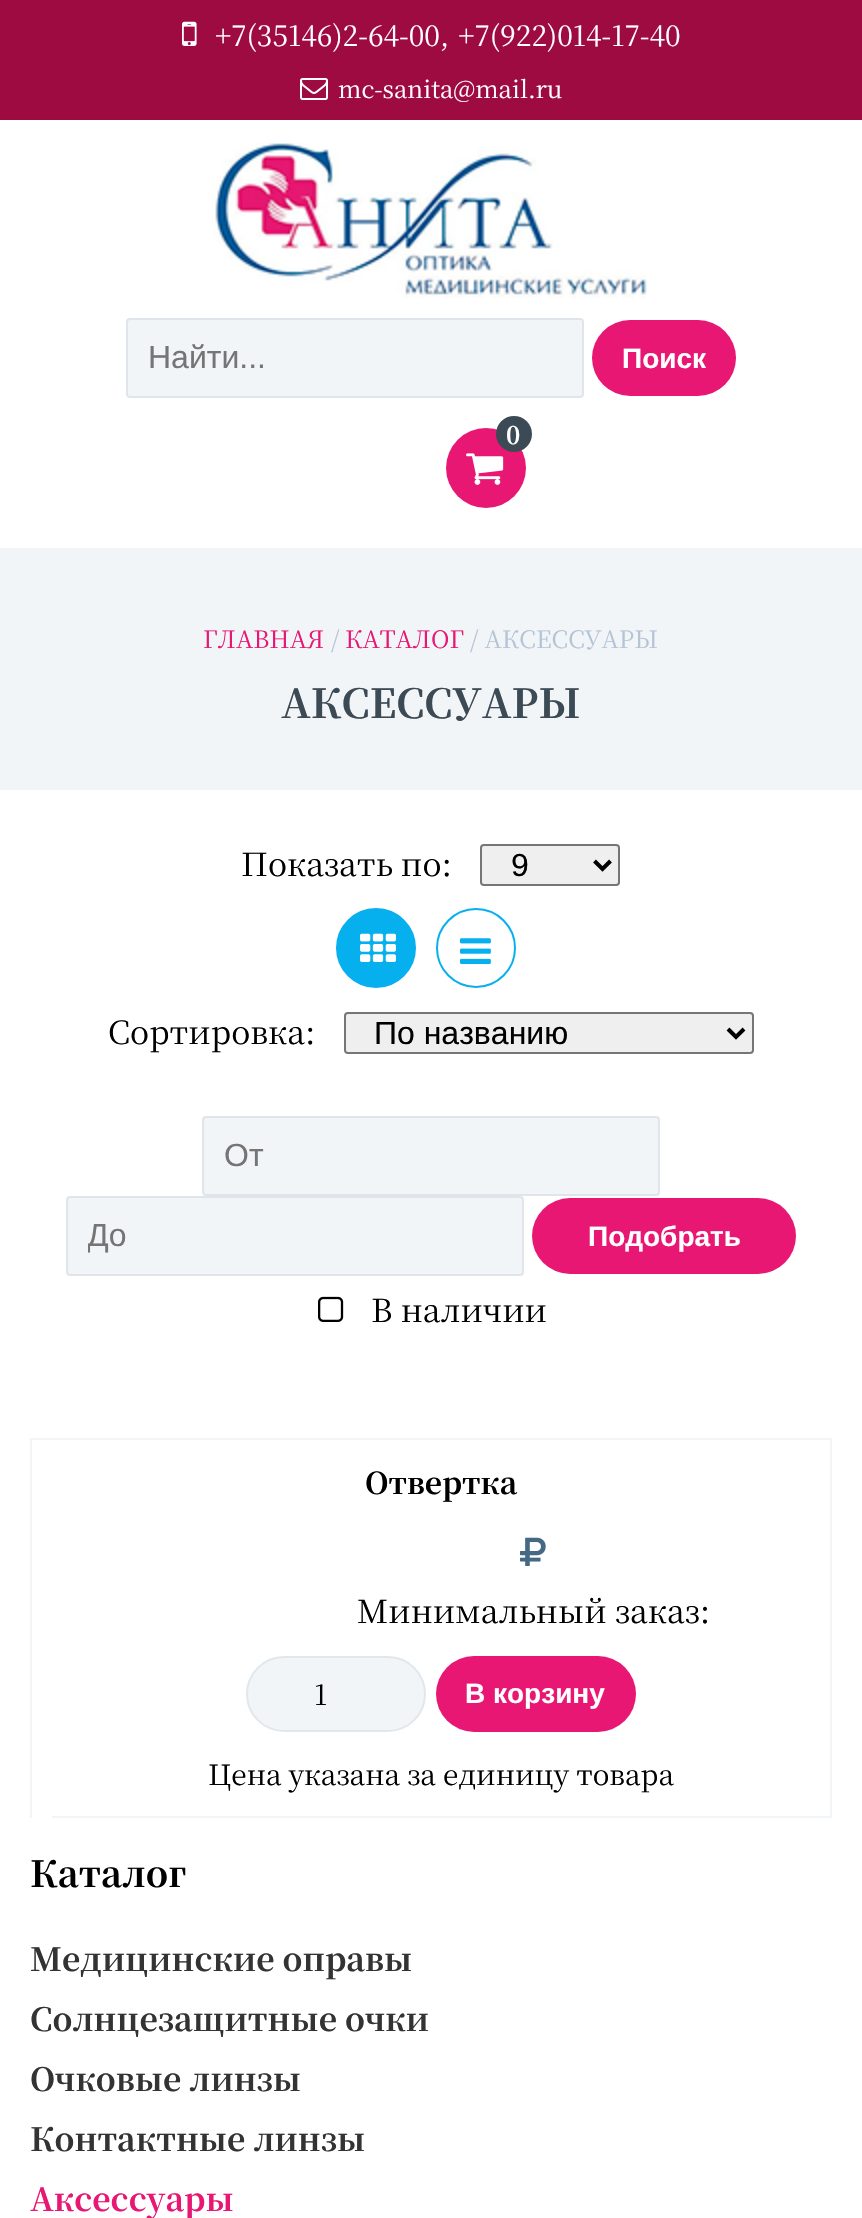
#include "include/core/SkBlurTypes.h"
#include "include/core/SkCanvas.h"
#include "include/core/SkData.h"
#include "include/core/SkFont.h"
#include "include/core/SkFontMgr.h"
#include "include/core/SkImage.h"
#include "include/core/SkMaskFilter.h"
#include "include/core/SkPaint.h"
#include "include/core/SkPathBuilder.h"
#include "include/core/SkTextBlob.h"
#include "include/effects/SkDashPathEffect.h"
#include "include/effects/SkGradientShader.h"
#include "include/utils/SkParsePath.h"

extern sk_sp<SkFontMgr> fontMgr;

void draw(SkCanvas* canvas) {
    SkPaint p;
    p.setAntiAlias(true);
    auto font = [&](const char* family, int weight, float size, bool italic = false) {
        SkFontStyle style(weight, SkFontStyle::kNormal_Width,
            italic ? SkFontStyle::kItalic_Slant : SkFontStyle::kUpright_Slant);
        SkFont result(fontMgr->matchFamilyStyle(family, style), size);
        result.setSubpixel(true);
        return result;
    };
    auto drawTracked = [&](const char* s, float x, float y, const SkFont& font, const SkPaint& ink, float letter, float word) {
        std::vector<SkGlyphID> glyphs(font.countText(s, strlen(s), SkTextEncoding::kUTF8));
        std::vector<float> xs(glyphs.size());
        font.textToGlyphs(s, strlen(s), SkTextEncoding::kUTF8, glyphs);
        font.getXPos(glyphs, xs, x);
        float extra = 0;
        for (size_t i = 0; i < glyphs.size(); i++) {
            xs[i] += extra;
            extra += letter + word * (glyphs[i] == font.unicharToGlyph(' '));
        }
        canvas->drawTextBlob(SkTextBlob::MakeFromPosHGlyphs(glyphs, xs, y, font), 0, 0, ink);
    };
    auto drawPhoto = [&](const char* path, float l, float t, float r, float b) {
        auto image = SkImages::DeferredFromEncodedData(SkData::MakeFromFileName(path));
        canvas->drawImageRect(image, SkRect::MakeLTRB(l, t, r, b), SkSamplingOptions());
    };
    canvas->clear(0xFFFFFFFF);
    p.setColor(0xFF9E0B41);
    canvas->drawRect(SkRect::MakeLTRB(0, 0, 862, 120), p);
    drawPhoto("media/1.png", 182, 21, 197, 46);
    auto font1 = font("Noto Serif SC", 400, 28);
    p.setColor(0xFFFFFFFF);
    drawTracked("+7(35146)2-64-00, +7(922)014-17-40", 215, 46, font1, p, 0, 2);
    drawPhoto("media/2.png", 300, 78, 328, 100);
    auto font2 = font("Noto Serif SC", 400, 24);
    canvas->drawString("mc-sanita@mail.ru", 338, 98, font2, p);
    drawPhoto("media/3.png", 212, 142, 647, 298);
    p.setColor(0xFFF2F5F8);
    canvas->drawRoundRect(SkRect::MakeLTRB(127, 319, 583, 397), 3, 3, p);
    p.setStyle(SkPaint::kStroke_Style);
    p.setStrokeWidth(2);
    p.setColor(0xFFE0E5EB);
    canvas->drawRoundRect(SkRect::MakeLTRB(127, 319, 583, 397), 3, 3, p);
    auto font3 = font("Liberation Sans", 400, 32);
    p.setStyle(SkPaint::kFill_Style);
    p.setColor(0xFF757575);
    canvas->drawString("Найти...", 148, 368, font3, p);
    p.setColor(0xFFE71773);
    canvas->drawRoundRect(SkRect::MakeLTRB(592, 320, 736, 396), 38, 38, p);
    auto font4 = font("Liberation Sans", 700, 28);
    p.setColor(0xFFFFFFFF);
    canvas->drawString("Поиск", 622, 368, font4, p);
    p.setColor(0xFFE71773);
    canvas->drawCircle(486, 468, 40, p);
    p.setColor(0xFF3C4A55);
    canvas->drawCircle(514, 434, 18, p);
    auto font5 = font("Noto Serif SC", 700, 24);
    p.setColor(0xFFFFFFFF);
    canvas->drawString("0", 506, 444, font5, p);
    drawPhoto("media/4.png", 466, 453, 504, 485);
    p.setColor(0xFFF2F5F8);
    canvas->drawRect(SkRect::MakeLTRB(0, 548, 862, 790), p);
    p.setColor(0xFFE71773);
    canvas->drawString("ГЛАВНАЯ", 203, 648, font2, p);
    p.setColor(0xFFB5C4D5);
    canvas->drawString("/", 331, 648, font2, p);
    p.setColor(0xFFE71773);
    canvas->drawString("КАТАЛОГ", 345, 648, font2, p);
    p.setColor(0xFFB5C4D5);
    canvas->drawString("/ АКСЕССУАРЫ", 470, 648, font2, p);
    auto font6 = font("Noto Serif SC", 700, 40);
    p.setColor(0xFF3C4A55);
    canvas->drawString("АКСЕССУАРЫ", 281, 718, font6, p);
    auto font7 = font("Noto Serif SC", 400, 32);
    p.setColor(0xFF000000);
    canvas->drawString("Показать по:", 241, 876, font7, p);
    p.setColor(0xFFEFEFEF);
    canvas->drawRoundRect(SkRect::MakeLTRB(481, 845, 619, 885), 3, 3, p);
    p.setStyle(SkPaint::kStroke_Style);
    p.setColor(0xFF767676);
    canvas->drawRoundRect(SkRect::MakeLTRB(481, 845, 619, 885), 3, 3, p);
    p.setStrokeWidth(4);
    p.setColor(0xFF000000);
    canvas->drawPath(SkPathBuilder().moveTo(594.5f, 861).lineTo(602.5f, 869).lineTo(610.5f, 861).detach(), p);
    p.setStyle(SkPaint::kFill_Style);
    canvas->drawString("9", 511, 876, font3, p);
    p.setColor(0xFF06B0EF);
    canvas->drawCircle(376, 948, 39, p);
    p.setStyle(SkPaint::kStroke_Style);
    p.setStrokeWidth(2);
    canvas->drawCircle(376, 948, 39, p);
    drawPhoto("media/5.png", 360, 933, 396, 962);
    canvas->drawCircle(476, 948, 39, p);
    drawPhoto("media/6.png", 460, 938, 491, 964);
    p.setStyle(SkPaint::kFill_Style);
    p.setColor(0xFF000000);
    canvas->drawString("Сортировка:", 108, 1044, font7, p);
    p.setColor(0xFFEFEFEF);
    canvas->drawRoundRect(SkRect::MakeLTRB(345, 1013, 753, 1053), 3, 3, p);
    p.setStyle(SkPaint::kStroke_Style);
    p.setColor(0xFF767676);
    canvas->drawRoundRect(SkRect::MakeLTRB(345, 1013, 753, 1053), 3, 3, p);
    p.setStrokeWidth(4);
    p.setColor(0xFF000000);
    canvas->drawPath(SkPathBuilder().moveTo(728, 1029).lineTo(736, 1037).lineTo(744, 1029).detach(), p);
    p.setStyle(SkPaint::kFill_Style);
    canvas->drawString("По названию", 374, 1044, font3, p);
    p.setColor(0xFFF2F5F8);
    canvas->drawRoundRect(SkRect::MakeLTRB(203, 1117, 659, 1195), 3, 3, p);
    p.setStyle(SkPaint::kStroke_Style);
    p.setStrokeWidth(2);
    p.setColor(0xFFE0E5EB);
    canvas->drawRoundRect(SkRect::MakeLTRB(203, 1117, 659, 1195), 3, 3, p);
    p.setStyle(SkPaint::kFill_Style);
    p.setColor(0xFF757575);
    canvas->drawString("От", 224, 1166, font3, p);
    p.setColor(0xFFF2F5F8);
    canvas->drawRoundRect(SkRect::MakeLTRB(67, 1197, 523, 1275), 3, 3, p);
    p.setStyle(SkPaint::kStroke_Style);
    p.setColor(0xFFE0E5EB);
    canvas->drawRoundRect(SkRect::MakeLTRB(67, 1197, 523, 1275), 3, 3, p);
    canvas->save();
    canvas->clipRect(SkRect::MakeLTRB(88, 1218, 502, 1254));
    p.setStyle(SkPaint::kFill_Style);
    p.setColor(0xFF757575);
    canvas->drawString("До", 87, 1246, font3, p);
    canvas->restore();
    p.setColor(0xFFE71773);
    canvas->drawRoundRect(SkRect::MakeLTRB(532, 1198, 796, 1274), 38, 38, p);
    p.setColor(0xFFFFFFFF);
    canvas->drawString("Подобрать", 588, 1246, font4, p);
    drawPhoto("media/7.png", 318, 1296, 344, 1322);
    p.setColor(0xFF000000);
    canvas->drawString("В наличии", 371, 1322, font7, p);
    {
        const struct { float l, t, r, b; SkColor color; } items[] = {
            {30, 1438, 832, 1440, 0xFFF2F5F8},
            {830, 1438, 832, 1818, 0xFFF2F5F8},
            {30, 1438, 32, 1818, 0xFFF2F5F8},
            {52, 1816, 830, 1818, 0xFFF2F5F8},
        };
        for (auto [l, t, r, b, color] : items) {
            p.setColor(color);
            canvas->drawRect(SkRect::MakeLTRB(l, t, r, b), p);
        }
    }
    auto font8 = font("Noto Serif SC", 700, 30);
    p.setColor(0xFF000000);
    canvas->drawString("Отвертка", 365, 1494, font8, p);
    drawPhoto("media/8.png", 520, 1537, 546, 1566);
    canvas->drawString("Минимальный заказ:", 357, 1623, font7, p);
    p.setColor(0xFFF2F5F8);
    canvas->drawRoundRect(SkRect::MakeLTRB(247, 1657, 425, 1731), 37, 37, p);
    p.setStyle(SkPaint::kStroke_Style);
    p.setColor(0xFFE2E7EC);
    canvas->drawRoundRect(SkRect::MakeLTRB(247, 1657, 425, 1731), 37, 37, p);
    p.setStyle(SkPaint::kFill_Style);
    p.setColor(0xFF000000);
    canvas->drawString("1", 314, 1705, font1, p);
    p.setColor(0xFFE71773);
    canvas->drawRoundRect(SkRect::MakeLTRB(436, 1656, 636, 1732), 38, 38, p);
    p.setColor(0xFFFFFFFF);
    canvas->drawString("В корзину", 465, 1703, font4, p);
    p.setColor(0xFF000000);
    canvas->drawString("Цена указана за единицу товара", 208, 1785, font1, p);
    auto font9 = font("Noto Serif SC", 700, 36);
    canvas->drawString("Каталог", 30, 1887, font9, p);
    auto font10 = font("Noto Serif SC", 700, 32);
    p.setColor(0xFF333333);
    {
        const struct { const char* s; float x, y; } items[] = {
            {"Медицинские оправы", 30, 1971},
            {"Солнцезащитные очки", 30, 2031},
            {"Очковые линзы", 30, 2091},
            {"Контактные линзы", 30, 2151},
        };
        for (auto [s, x, y] : items) {
            canvas->drawString(s, x, y, font10, p);
        }
    }
    p.setColor(0xFFE71773);
    canvas->drawString("Аксессуары", 30, 2211, font10, p);
}
